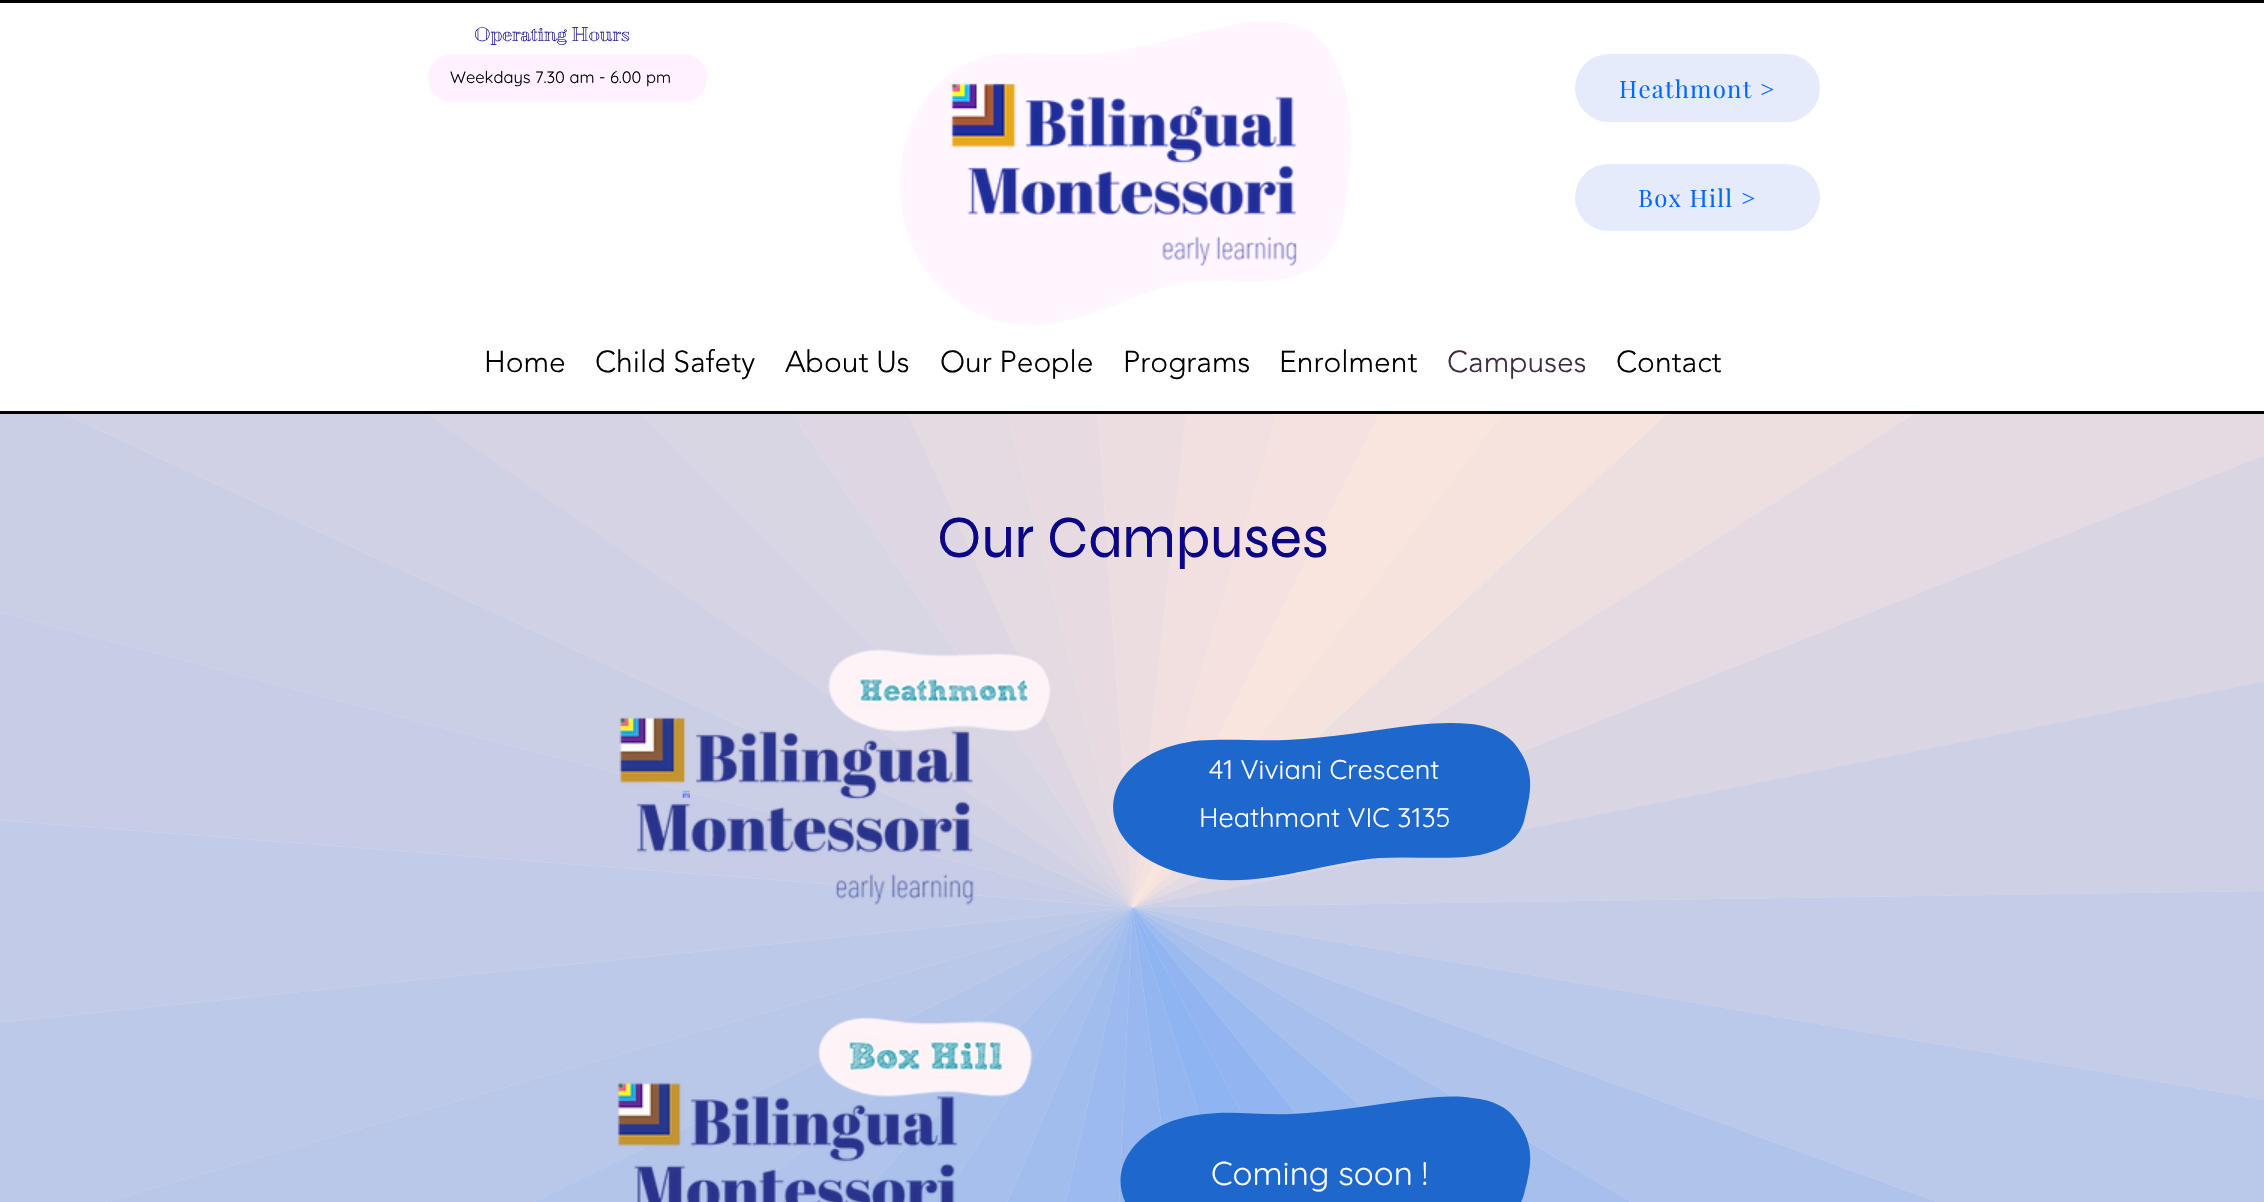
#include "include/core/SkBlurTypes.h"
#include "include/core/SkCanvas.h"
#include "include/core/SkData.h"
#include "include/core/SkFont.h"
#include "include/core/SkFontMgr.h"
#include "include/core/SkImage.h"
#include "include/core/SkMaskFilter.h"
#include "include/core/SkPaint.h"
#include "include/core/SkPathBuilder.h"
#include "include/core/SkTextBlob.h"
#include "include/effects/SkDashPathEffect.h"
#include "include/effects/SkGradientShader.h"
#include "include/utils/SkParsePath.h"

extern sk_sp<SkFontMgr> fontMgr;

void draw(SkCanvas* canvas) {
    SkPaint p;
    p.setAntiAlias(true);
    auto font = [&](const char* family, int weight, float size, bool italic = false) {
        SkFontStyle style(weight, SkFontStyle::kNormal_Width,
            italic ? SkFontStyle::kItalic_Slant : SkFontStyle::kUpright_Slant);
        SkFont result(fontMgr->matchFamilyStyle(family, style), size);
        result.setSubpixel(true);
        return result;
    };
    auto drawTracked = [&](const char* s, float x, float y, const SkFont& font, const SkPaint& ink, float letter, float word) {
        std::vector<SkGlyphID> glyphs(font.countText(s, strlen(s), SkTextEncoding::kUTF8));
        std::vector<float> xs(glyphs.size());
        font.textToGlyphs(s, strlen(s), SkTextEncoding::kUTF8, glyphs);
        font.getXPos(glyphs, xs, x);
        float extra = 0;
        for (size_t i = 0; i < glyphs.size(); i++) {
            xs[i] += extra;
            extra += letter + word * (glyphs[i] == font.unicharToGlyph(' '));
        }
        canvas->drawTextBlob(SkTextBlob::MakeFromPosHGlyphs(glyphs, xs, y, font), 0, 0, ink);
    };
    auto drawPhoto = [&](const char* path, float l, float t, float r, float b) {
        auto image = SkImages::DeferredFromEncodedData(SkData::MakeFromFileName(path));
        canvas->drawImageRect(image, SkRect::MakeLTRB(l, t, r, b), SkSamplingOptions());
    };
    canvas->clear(0xFFFFFFFF);
    p.setColor(0xFF000000);
    canvas->drawRect(SkRect::MakeLTRB(0, 0, 2264, 3), p);
    canvas->drawRect(SkRect::MakeLTRB(0, 411, 2264, 414), p);
    auto font1 = font("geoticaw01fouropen", 700, 18);
    p.setColor(0xFF0A0685);
    canvas->drawString("Operating Hours", 474, 41, font1, p);
    p.setColor(0xFFFFF6FF);
    canvas->drawPath(SkPathBuilder().moveTo(1008, 53).cubicTo(1032, 52, 1059, 56, 1088, 54).cubicTo(1136, 51, 1182, 35, 1228, 26).cubicTo(1247, 21, 1268, 19, 1288, 23).cubicTo(1312, 28, 1326, 42, 1334, 60).cubicTo(1357, 110, 1353, 149, 1346, 202).cubicTo(1342, 232, 1331, 268, 1290, 278).cubicTo(1258, 286, 1222, 278, 1189, 282).cubicTo(1131, 290, 1067, 337, 1005, 323).cubicTo(885, 296, 869, 134, 951, 73).cubicTo(970, 59, 988, 55, 1008, 53).close().detach(), p);
    p.setColor(0xFFFFF1FF);
    canvas->drawRoundRect(SkRect::MakeLTRB(428, 54, 707, 102), 24, 24, p);
    auto font2 = font("Quicksand", 400, 16.5f);
    p.setColor(0xFF000000);
    canvas->drawString("Weekdays 7.30 am - 6.00 pm", 450, 83, font2, p);
    drawPhoto("media/1.png", 951, 83, 1297, 266);
    p.setColor(0xFFE5EBFA);
    canvas->drawRoundRect(SkRect::MakeLTRB(1575, 54, 1820, 122), 34, 34, p);
    auto font3 = font("Playfair Display", 400, 24);
    p.setColor(0xFF0069FF);
    drawTracked("Heathmont >", 1619, 98, font3, p, 1.25f, 0);
    p.setColor(0xFFE5EBFA);
    canvas->drawRoundRect(SkRect::MakeLTRB(1575, 164, 1820, 231), 33.5f, 33.5f, p);
    p.setColor(0xFF0069FF);
    drawTracked("Box Hill >", 1638, 207, font3, p, 1.25f, 0);
    auto font4 = font("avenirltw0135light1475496", 300, 30);
    p.setColor(0xFF000000);
    {
        const struct { const char* s; float x, y; } items[] = {
            {"Home", 484, 372},
            {"Child Safety", 595, 372},
            {"About Us", 785, 372},
            {"Our People", 940, 372},
            {"Programs", 1123, 372},
            {"Enrolment", 1279, 372},
        };
        for (auto [s, x, y] : items) {
            canvas->drawString(s, x, y, font4, p);
        }
    }
    p.setColor(0xFF402B40);
    canvas->drawString("Campuses", 1447, 372, font4, p);
    p.setColor(0xFF000000);
    canvas->drawString("Contact", 1616, 372, font4, p);
    drawPhoto("media/3.png", 0, 414, 2264, 1202);
    drawPhoto("media/4.png", 619, 649, 1051, 905);
    drawPhoto("media/2.png", 682, 790, 690, 798);
    auto font5 = font("Syne", 400, 60);
    p.setColor(0xFF0A0685);
    canvas->drawString("Our Campuses", 937, 557, font5, p);
    p.setColor(0xFF1D67CD);
    canvas->drawPath(SkPathBuilder().moveTo(1212, 740).cubicTo(1235, 739, 1259, 741, 1286, 740).cubicTo(1331, 738, 1373, 730, 1416, 725).cubicTo(1434, 723, 1453, 722, 1471, 724).cubicTo(1494, 727, 1506, 734, 1514, 743).cubicTo(1535, 769, 1532, 789, 1525, 817).cubicTo(1522, 832, 1511, 851, 1473, 856).cubicTo(1444, 860, 1411, 856, 1380, 858).cubicTo(1326, 862, 1267, 886, 1210, 879).cubicTo(1099, 865, 1085, 781, 1160, 750).cubicTo(1178, 743, 1195, 740, 1212, 740).close().detach(), p);
    auto font6 = font("Quicksand", 400, 27);
    p.setColor(0xFFFFFFFF);
    canvas->drawString("41 Viviani Crescent", 1209, 779, font6, p);
    canvas->drawString("Heathmont VIC 3135", 1199, 827, font6, p);
    drawPhoto("media/5.png", 617, 1017, 1033, 1202);
    p.setColor(0xFF1D67CD);
    canvas->drawPath(SkPathBuilder().moveTo(1218, 1113).cubicTo(1241, 1112, 1264, 1115, 1291, 1114).cubicTo(1334, 1112, 1376, 1104, 1418, 1099).cubicTo(1436, 1097, 1454, 1095, 1472, 1098).cubicTo(1494, 1100, 1507, 1108, 1514, 1117).cubicTo(1535, 1143, 1532, 1163, 1525, 1190).cubicTo(1522, 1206, 1511, 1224, 1474, 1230).cubicTo(1445, 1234, 1413, 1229, 1383, 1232).cubicTo(1330, 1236, 1272, 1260, 1216, 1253).cubicTo(1106, 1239, 1093, 1155, 1167, 1123).cubicTo(1184, 1116, 1201, 1114, 1218, 1113).close().detach(), p);
    auto font7 = font("Quicksand", 400, 33);
    p.setColor(0xFFFFFFFF);
    canvas->drawString("Coming soon !", 1211, 1185, font7, p);
}
